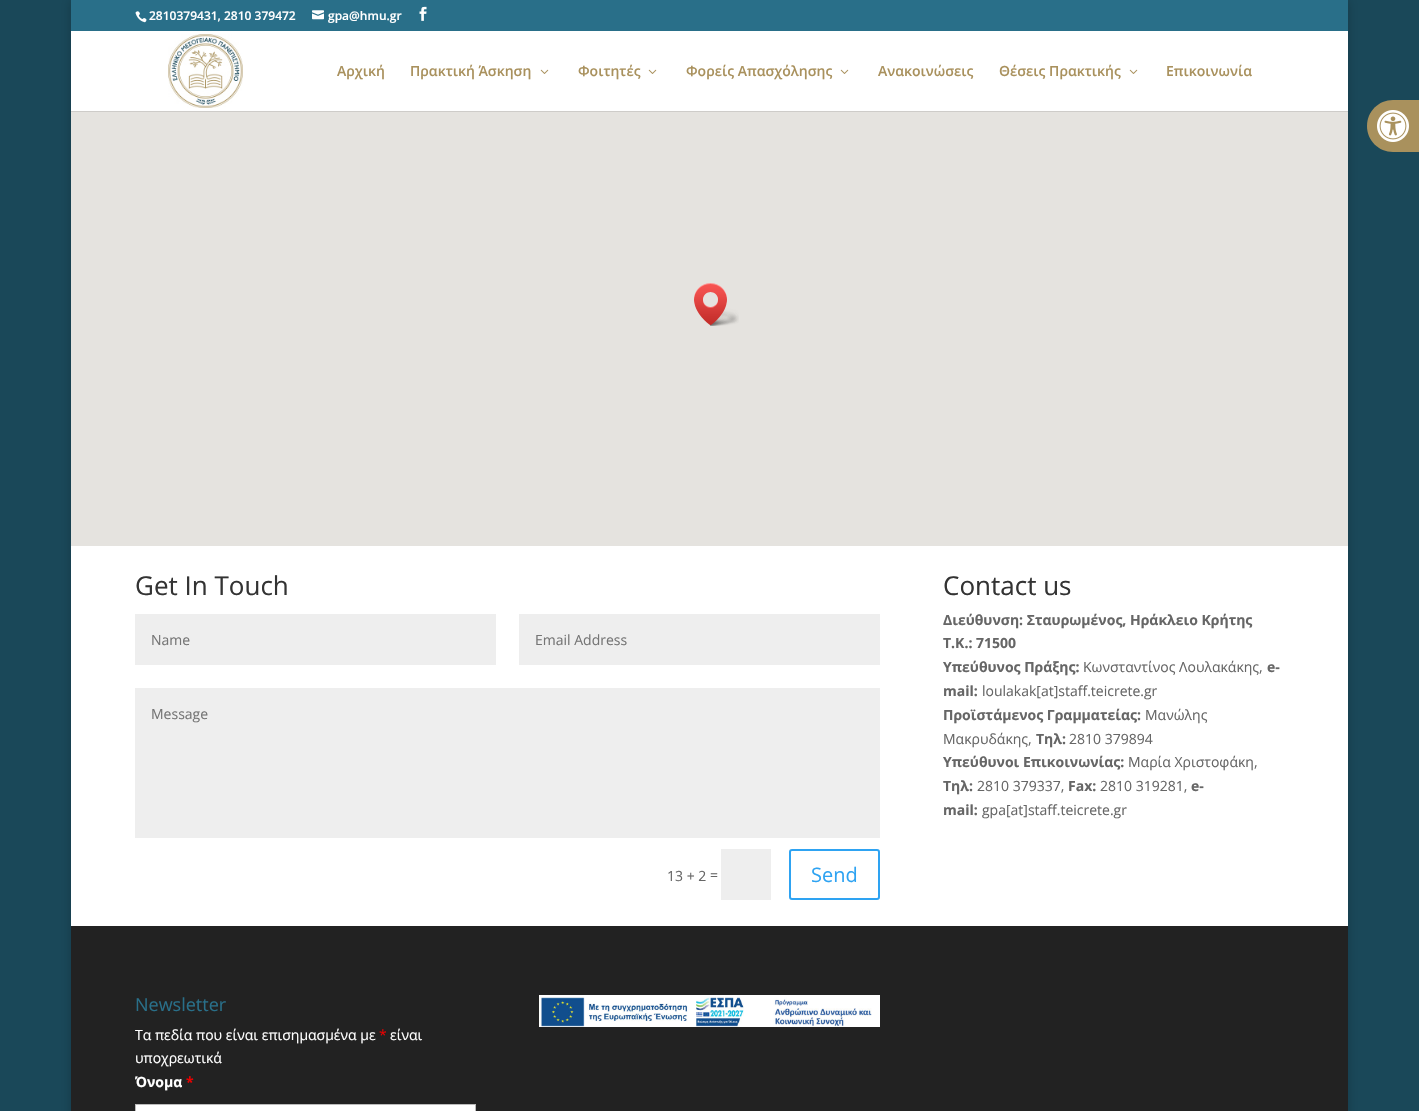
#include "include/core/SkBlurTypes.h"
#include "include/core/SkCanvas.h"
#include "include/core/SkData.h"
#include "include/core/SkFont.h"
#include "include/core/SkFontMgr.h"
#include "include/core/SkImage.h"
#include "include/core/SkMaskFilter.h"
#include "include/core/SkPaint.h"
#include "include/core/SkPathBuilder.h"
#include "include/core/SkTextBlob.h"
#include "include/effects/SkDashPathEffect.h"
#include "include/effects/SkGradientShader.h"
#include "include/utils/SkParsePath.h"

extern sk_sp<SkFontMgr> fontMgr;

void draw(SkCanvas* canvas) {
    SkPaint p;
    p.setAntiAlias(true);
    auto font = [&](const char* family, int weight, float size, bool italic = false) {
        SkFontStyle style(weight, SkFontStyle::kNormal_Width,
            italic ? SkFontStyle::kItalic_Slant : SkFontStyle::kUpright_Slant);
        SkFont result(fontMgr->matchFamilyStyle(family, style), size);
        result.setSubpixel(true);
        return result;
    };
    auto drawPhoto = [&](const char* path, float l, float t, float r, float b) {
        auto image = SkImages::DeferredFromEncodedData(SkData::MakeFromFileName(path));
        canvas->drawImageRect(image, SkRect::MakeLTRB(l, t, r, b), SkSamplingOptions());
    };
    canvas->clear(0xFF1A4859);
    p.setColor(0x33000000);
    p.setMaskFilter(SkMaskFilter::MakeBlur(kNormal_SkBlurStyle, 5));
    canvas->drawRect(SkRect::MakeLTRB(71, 0, 1348, 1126), p);
    p.setMaskFilter(nullptr);
    p.setColor(0xFF296F89);
    canvas->drawRect(SkRect::MakeLTRB(71, 0, 1348, 31), p);
    drawPhoto("media/1.png", 135, 11, 147, 23);
    auto font1 = font("Open Sans", 600, 12);
    p.setColor(0xFFFFFFFF);
    canvas->drawString("2810379431, 2810 379472", 149, 20, font1, p);
    drawPhoto("media/2.png", 312, 10, 324, 20);
    canvas->drawString("gpa@hmu.gr", 328, 20, font1, p);
    drawPhoto("media/3.png", 419, 6, 427, 21);
    p.setColor(0xFFCECCC9);
    canvas->drawRect(SkRect::MakeLTRB(71, 111, 1348, 112), p);
    p.setColor(0xFFFFFFFF);
    canvas->drawRect(SkRect::MakeLTRB(71, 31, 1348, 111), p);
    drawPhoto("media/4.png", 168, 34, 243, 108);
    auto font2 = font("Open Sans", 600, 14);
    p.setColor(0xFFA9915D);
    canvas->drawString("Αρχική", 337, 76, font2, p);
    canvas->drawString("Πρακτική Άσκηση", 410, 76, font2, p);
    drawPhoto("media/5.png", 540, 69, 549, 74);
    canvas->drawString("Φοιτητές", 578, 76, font2, p);
    drawPhoto("media/5.png", 648, 69, 657, 74);
    canvas->drawString("Φορείς Απασχόλησης", 686, 76, font2, p);
    drawPhoto("media/5.png", 840, 69, 849, 74);
    canvas->drawString("Ανακοινώσεις", 878, 76, font2, p);
    canvas->drawString("Θέσεις Πρακτικής", 999, 76, font2, p);
    drawPhoto("media/5.png", 1129, 69, 1138, 74);
    canvas->drawString("Επικοινωνία", 1166, 76, font2, p);
    p.setColor(0xFFE5E3DF);
    canvas->drawRect(SkRect::MakeLTRB(71, 112, 1348, 546), p);
    drawPhoto("media/6.png", 694, 283, 739, 326);
    p.setColor(0xFFFFFFFF);
    canvas->drawRect(SkRect::MakeLTRB(71, 546, 1348, 926), p);
    auto font3 = font("Open Sans", 400, 26);
    p.setColor(0xFF333333);
    canvas->drawString("Get In Touch", 135, 595, font3, p);
    p.setColor(0xFFEEEEEE);
    canvas->drawRect(SkRect::MakeLTRB(135, 614, 496, 665), p);
    auto font4 = font("Open Sans", 400, 14);
    p.setColor(0xFF757575);
    canvas->drawString("Name", 151, 645, font4, p);
    p.setColor(0xFFEEEEEE);
    canvas->drawRect(SkRect::MakeLTRB(519, 614, 880, 665), p);
    p.setColor(0xFF757575);
    canvas->drawString("Email Address", 535, 645, font4, p);
    p.setColor(0xFFEEEEEE);
    canvas->drawRect(SkRect::MakeLTRB(135, 688, 880, 838), p);
    p.setColor(0xFF757575);
    canvas->drawString("Message", 151, 719, font4, p);
    p.setColor(0xFF666666);
    canvas->drawString("13 + 2", 667, 881, font4, p);
    canvas->drawString("=", 710, 880, font4, p);
    p.setColor(0xFFEEEEEE);
    canvas->drawRect(SkRect::MakeLTRB(721, 849, 771, 900), p);
    p.setStyle(SkPaint::kStroke_Style);
    p.setStrokeWidth(2);
    p.setColor(0xFF2EA3F2);
    canvas->drawRoundRect(SkRect::MakeLTRB(790, 850, 879, 899), 2, 2, p);
    auto font5 = font("Open Sans", 400, 20);
    p.setStyle(SkPaint::kFill_Style);
    canvas->drawString("Send", 811, 882, font5, p);
    p.setColor(0xFF333333);
    canvas->drawString("Contact us", 943, 595, font3, p);
    auto font6 = font("Open Sans", 700, 14);
    p.setColor(0xFF666666);
    {
        const struct { const char* s; float x, y; } items[] = {
            {"Διεύθυνση: Σταυρωμένος, Ηράκλειο Κρήτης", 943, 625},
            {"Τ.Κ.: 71500", 943, 648},
            {"Υπεύθυνος Πράξης:", 943, 672},
        };
        for (auto [s, x, y] : items) {
            canvas->drawString(s, x, y, font6, p);
        }
    }
    canvas->drawString("Κωνσταντίνος Λουλακάκης,", 1083, 672, font4, p);
    canvas->drawString("e-", 1267, 672, font6, p);
    canvas->drawString("mail:", 943, 696, font6, p);
    canvas->drawString("loulakak[at]staff.teicrete.gr", 982, 696, font4, p);
    canvas->drawString("Προϊστάμενος Γραμματείας:", 943, 720, font6, p);
    canvas->drawString("Μανώλης", 1145, 720, font4, p);
    canvas->drawString("Μακρυδάκης,", 943, 744, font4, p);
    canvas->drawString("Τηλ:", 1036, 744, font6, p);
    canvas->drawString("2810 379894", 1069, 744, font4, p);
    canvas->drawString("Υπεύθυνοι Επικοινωνίας:", 943, 767, font6, p);
    canvas->drawString("Μαρία Χριστοφάκη,", 1128, 767, font4, p);
    canvas->drawString("Τηλ:", 943, 791, font6, p);
    canvas->drawString("2810 379337,", 977, 791, font4, p);
    canvas->drawString("Fax:", 1068, 791, font6, p);
    canvas->drawString("2810 319281,", 1100, 791, font4, p);
    canvas->drawString("e-", 1191, 791, font6, p);
    canvas->drawString("mail:", 943, 815, font6, p);
    canvas->drawString("gpa[at]staff.teicrete.gr", 982, 815, font4, p);
    p.setColor(0xFF222222);
    canvas->drawRect(SkRect::MakeLTRB(71, 926, 1348, 1111), p);
    auto font7 = font("Open Sans", 400, 18);
    p.setColor(0xFF296F89);
    canvas->drawString("Newsletter", 135, 1011, font7, p);
    p.setColor(0xFFFFFFFF);
    canvas->drawString("Τα πεδία που είναι επισημασμένα με", 135, 1040, font4, p);
    p.setColor(0xFFE80000);
    canvas->drawString("*", 379, 1040, font4, p);
    p.setColor(0xFFFFFFFF);
    canvas->drawString("είναι", 390, 1040, font4, p);
    canvas->drawString("υποχρεωτικά", 135, 1063, font4, p);
    canvas->drawString("Όνομα", 135, 1087, font6, p);
    p.setColor(0xFFE80000);
    canvas->drawString("*", 186, 1087, font6, p);
    p.setColor(0xFFFFFFFF);
    canvas->drawRect(SkRect::MakeLTRB(135.5f, 1104.5f, 475.5f, 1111.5f), p);
    p.setStyle(SkPaint::kStroke_Style);
    p.setStrokeWidth(1);
    p.setColor(0xFFBBBBBB);
    canvas->drawRect(SkRect::MakeLTRB(135.5f, 1104.5f, 475.5f, 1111.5f), p);
    drawPhoto("media/7.png", 539, 995, 880, 1027);
    p.setStyle(SkPaint::kFill_Style);
    p.setColor(0xFFA9915D);
    canvas->drawPath(SkPathBuilder().moveTo(1393, 100).lineTo(1419, 100).lineTo(1419, 152).lineTo(1393, 152).cubicTo(1378.5f, 152, 1367, 140.5f, 1367, 126).cubicTo(1367, 111.5f, 1378.5f, 100, 1393, 100).close().detach(), p);
    drawPhoto("media/8.png", 1377, 110, 1409, 142);
}
